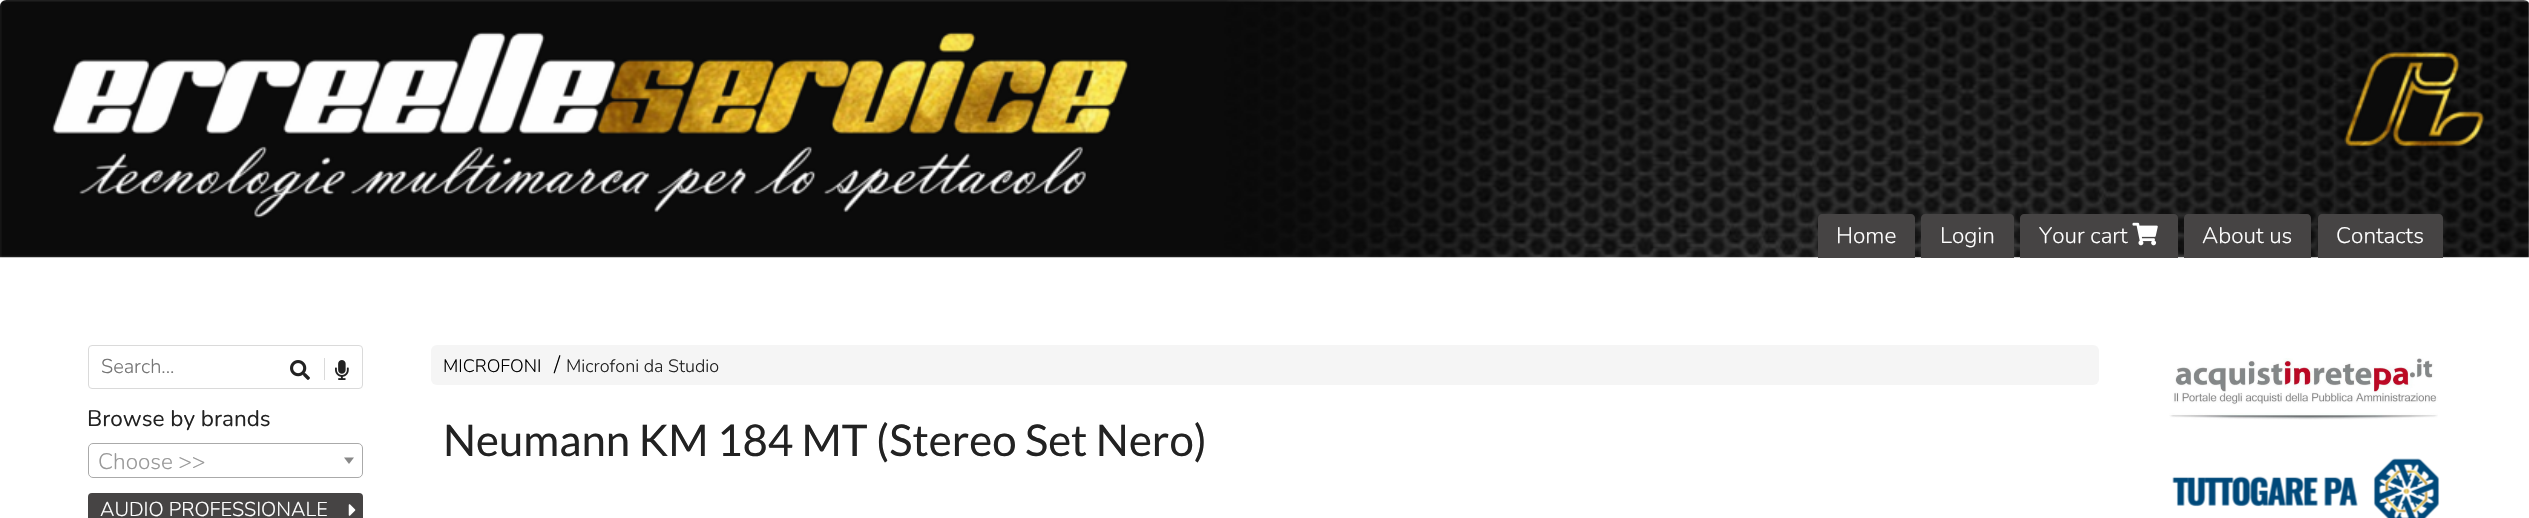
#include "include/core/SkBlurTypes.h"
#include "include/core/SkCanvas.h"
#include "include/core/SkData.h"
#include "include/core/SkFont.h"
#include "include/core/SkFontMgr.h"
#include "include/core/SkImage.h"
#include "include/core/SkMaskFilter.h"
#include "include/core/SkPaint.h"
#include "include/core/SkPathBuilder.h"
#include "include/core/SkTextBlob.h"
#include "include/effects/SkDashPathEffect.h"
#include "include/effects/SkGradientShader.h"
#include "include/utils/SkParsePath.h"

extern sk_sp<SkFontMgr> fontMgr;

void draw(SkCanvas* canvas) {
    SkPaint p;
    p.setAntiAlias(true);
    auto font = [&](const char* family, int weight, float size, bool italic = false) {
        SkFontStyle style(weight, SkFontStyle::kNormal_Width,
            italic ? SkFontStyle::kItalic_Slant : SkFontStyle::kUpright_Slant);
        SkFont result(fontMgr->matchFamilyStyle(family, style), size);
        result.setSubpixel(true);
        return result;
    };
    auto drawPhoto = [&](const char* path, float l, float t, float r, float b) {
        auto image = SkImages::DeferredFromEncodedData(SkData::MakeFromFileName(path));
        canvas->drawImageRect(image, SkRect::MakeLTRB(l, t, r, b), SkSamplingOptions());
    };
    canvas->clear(0xFFFFFFFF);
    drawPhoto("media/1.png", 0, 0, 2529, 258);
    p.setColor(0xFF464444);
    canvas->drawPath(SkPathBuilder().moveTo(1822, 214).lineTo(1911, 214).cubicTo(1913, 214, 1915, 216, 1915, 218).lineTo(1915, 258).lineTo(1818, 258).lineTo(1818, 218).cubicTo(1818, 216, 1820, 214, 1822, 214).close().detach(), p);
    auto font1 = font("Nunito", 300, 22.5f);
    p.setColor(0xFFFFFFFF);
    canvas->drawString("Home", 1836, 243, font1, p);
    p.setColor(0xFF464444);
    canvas->drawPath(SkPathBuilder().moveTo(1925, 214).lineTo(2010, 214).cubicTo(2012, 214, 2014, 216, 2014, 218).lineTo(2014, 258).lineTo(1921, 258).lineTo(1921, 218).cubicTo(1921, 216, 1923, 214, 1925, 214).close().detach(), p);
    p.setColor(0xFFFFFFFF);
    canvas->drawString("Login", 1940, 243, font1, p);
    p.setColor(0xFF464444);
    canvas->drawPath(SkPathBuilder().moveTo(2024, 214).lineTo(2174, 214).cubicTo(2176, 214, 2178, 216, 2178, 218).lineTo(2178, 258).lineTo(2020, 258).lineTo(2020, 218).cubicTo(2020, 216, 2022, 214, 2024, 214).close().detach(), p);
    p.setColor(0xFFFFFFFF);
    canvas->drawString("Your cart", 2039, 243, font1, p);
    drawPhoto("media/2.png", 2132, 222, 2158, 246);
    p.setColor(0xFF464444);
    canvas->drawPath(SkPathBuilder().moveTo(2188, 214).lineTo(2307, 214).cubicTo(2309, 214, 2311, 216, 2311, 218).lineTo(2311, 258).lineTo(2184, 258).lineTo(2184, 218).cubicTo(2184, 216, 2186, 214, 2188, 214).close().detach(), p);
    p.setColor(0xFFFFFFFF);
    canvas->drawString("About us", 2202, 243, font1, p);
    p.setColor(0xFF464444);
    canvas->drawPath(SkPathBuilder().moveTo(2322, 214).lineTo(2439, 214).cubicTo(2441, 214, 2443, 216, 2443, 218).lineTo(2443, 258).lineTo(2318, 258).lineTo(2318, 218).cubicTo(2318, 216, 2320, 214, 2322, 214).close().detach(), p);
    p.setColor(0xFFFFFFFF);
    canvas->drawString("Contacts", 2336, 243, font1, p);
    p.setStyle(SkPaint::kStroke_Style);
    p.setStrokeWidth(1);
    p.setColor(0xFFDADADA);
    canvas->drawRoundRect(SkRect::MakeLTRB(88.5f, 345.5f, 362.5f, 388.5f), 3.5f, 3.5f, p);
    auto font2 = font("Nunito", 300, 20);
    p.setStyle(SkPaint::kFill_Style);
    p.setColor(0xFF757575);
    canvas->drawString("Search...", 101, 373, font2, p);
    drawPhoto("media/3.png", 290, 360, 310, 380);
    p.setColor(0xFFDADADA);
    canvas->drawRect(SkRect::MakeLTRB(324, 358, 325, 380), p);
    drawPhoto("media/4.png", 335, 360, 349, 380);
    auto font3 = font("Nunito", 400, 22.5f);
    p.setColor(0xFF222222);
    canvas->drawString("Browse by brands", 87, 426, font3, p);
    p.setStyle(SkPaint::kStroke_Style);
    p.setColor(0xFFAAAAAA);
    canvas->drawRoundRect(SkRect::MakeLTRB(88.5f, 443.5f, 362.5f, 477.5f), 4.5f, 4.5f, p);
    p.setStyle(SkPaint::kFill_Style);
    p.setColor(0xFF999999);
    canvas->drawString("Choose >>", 98, 469, font1, p);
    p.setColor(0xFF888888);
    canvas->drawPath(SkPathBuilder().moveTo(344, 457.5f).lineTo(354, 457.5f).lineTo(349, 464).close().detach(), p);
    p.setColor(0xFF464444);
    canvas->drawRoundRect(SkRect::MakeLTRB(88, 493, 363, 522), 4, 4, p);
    p.setColor(0xFFFFFFFF);
    canvas->drawString("AUDIO PROFESSIONALE", 100, 516, font2, p);
    drawPhoto("media/5.png", 348, 504, 356, 516);
    p.setColor(0xFFF5F5F5);
    canvas->drawRoundRect(SkRect::MakeLTRB(431, 345, 2099, 385), 6, 6, p);
    auto font4 = font("Nunito", 300, 18);
    p.setColor(0xFF000000);
    canvas->drawString("MICROFONI", 443, 372, font4, p);
    canvas->drawString("/", 554, 372, font1, p);
    p.setColor(0xFF222222);
    canvas->drawString("Microfoni da Studio", 566, 372, font4, p);
    auto font5 = font("Lato", 400, 43.75f);
    canvas->drawString("Neumann KM 184 MT (Stereo Set Nero)", 443, 456, font5, p);
    drawPhoto("media/6.png", 2169, 358, 2438, 420);
    drawPhoto("media/7.png", 2172, 458, 2440, 518);
}
